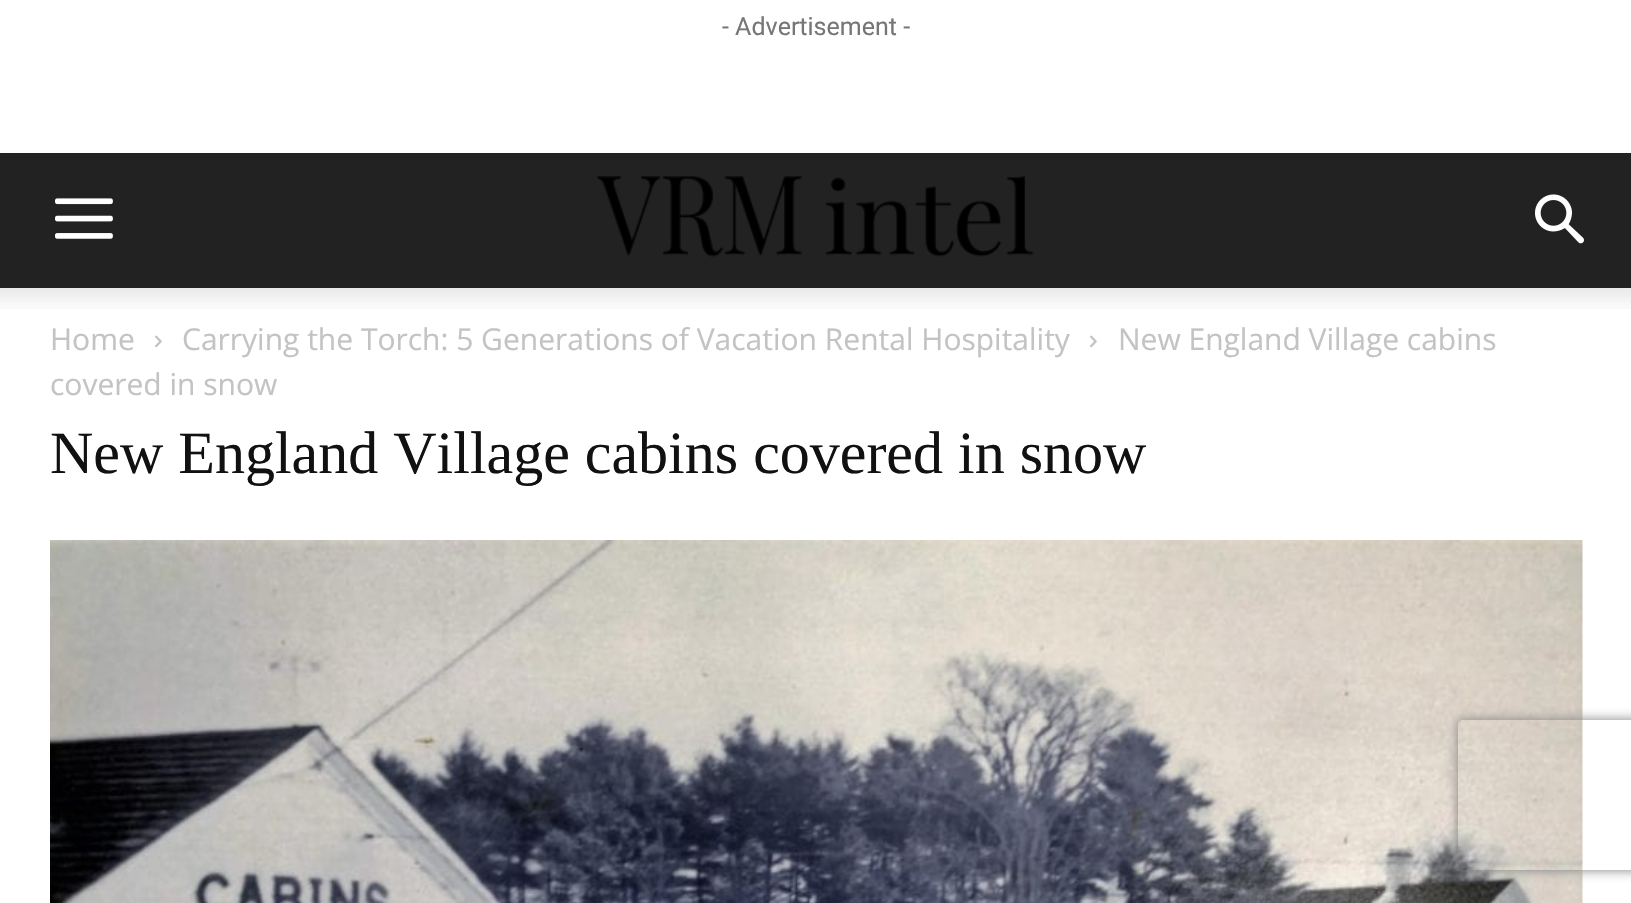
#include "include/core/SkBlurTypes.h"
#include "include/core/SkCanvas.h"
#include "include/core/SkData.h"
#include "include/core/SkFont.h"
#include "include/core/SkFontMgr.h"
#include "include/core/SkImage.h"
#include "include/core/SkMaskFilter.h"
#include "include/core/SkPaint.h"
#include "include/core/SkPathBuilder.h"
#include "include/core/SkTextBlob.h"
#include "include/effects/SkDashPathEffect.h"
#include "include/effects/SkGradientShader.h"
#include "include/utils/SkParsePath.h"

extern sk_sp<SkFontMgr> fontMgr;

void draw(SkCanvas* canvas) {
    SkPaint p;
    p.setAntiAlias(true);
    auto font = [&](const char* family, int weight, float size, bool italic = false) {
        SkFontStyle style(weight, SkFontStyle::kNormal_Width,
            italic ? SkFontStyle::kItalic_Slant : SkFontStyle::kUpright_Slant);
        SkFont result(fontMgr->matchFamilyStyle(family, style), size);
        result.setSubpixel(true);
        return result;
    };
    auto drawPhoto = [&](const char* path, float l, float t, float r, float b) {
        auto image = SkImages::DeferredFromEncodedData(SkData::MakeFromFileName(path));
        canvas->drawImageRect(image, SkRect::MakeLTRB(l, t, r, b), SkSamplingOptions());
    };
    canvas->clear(0xFFFFFFFF);
    auto font1 = font("Roboto", 400, 25);
    p.setColor(0xFF767676);
    canvas->drawString("- Advertisement -", 722, 35, font1, p);
    p.setColor(0xFF222222);
    canvas->drawRect(SkRect::MakeLTRB(0, 153, 1631, 288), p);
    drawPhoto("media/1.png", 55, 198, 113, 239);
    drawPhoto("media/2.png", 597, 176, 1034, 257);
    drawPhoto("media/3.png", 1535, 194, 1584, 244);
    drawPhoto("media/4.png", 0, 288, 1631, 309);
    auto font2 = font("Open Sans", 400, 30);
    p.setColor(0xFFC3C3C3);
    canvas->drawString("Home", 50, 350, font2, p);
    drawPhoto("media/5.png", 155, 335, 162, 348);
    canvas->drawString("Carrying the Torch: 5 Generations of Vacation Rental Hospitality", 182, 350, font2, p);
    drawPhoto("media/5.png", 1090, 335, 1097, 348);
    canvas->drawString("New England Village cabins", 1118, 350, font2, p);
    canvas->drawString("covered in snow", 50, 395, font2, p);
    auto font3 = font("Liberation Serif", 400, 60);
    p.setColor(0xFF111111);
    canvas->drawString("New England Village cabins covered in snow", 50, 473, font3, p);
    drawPhoto("media/6.png", 50, 540, 1583, 903);
    canvas->save();
    canvas->clipPath(SkPathBuilder(SkPathFillType::kEvenOdd).moveTo(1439, 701).lineTo(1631, 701).lineTo(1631, 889).lineTo(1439, 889).close().moveTo(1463, 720).lineTo(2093, 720).cubicTo(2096, 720, 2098, 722, 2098, 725).lineTo(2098, 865).cubicTo(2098, 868, 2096, 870, 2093, 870).lineTo(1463, 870).cubicTo(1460, 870, 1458, 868, 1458, 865).lineTo(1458, 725).cubicTo(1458, 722, 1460, 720, 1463, 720).close().detach(), true);
    p.setColor(0xFF808080);
    p.setMaskFilter(SkMaskFilter::MakeBlur(kNormal_SkBlurStyle, 6));
    canvas->drawRoundRect(SkRect::MakeLTRB(1458, 720, 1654, 870), 5, 5, p);
    p.setMaskFilter(nullptr);
    canvas->restore();
}
